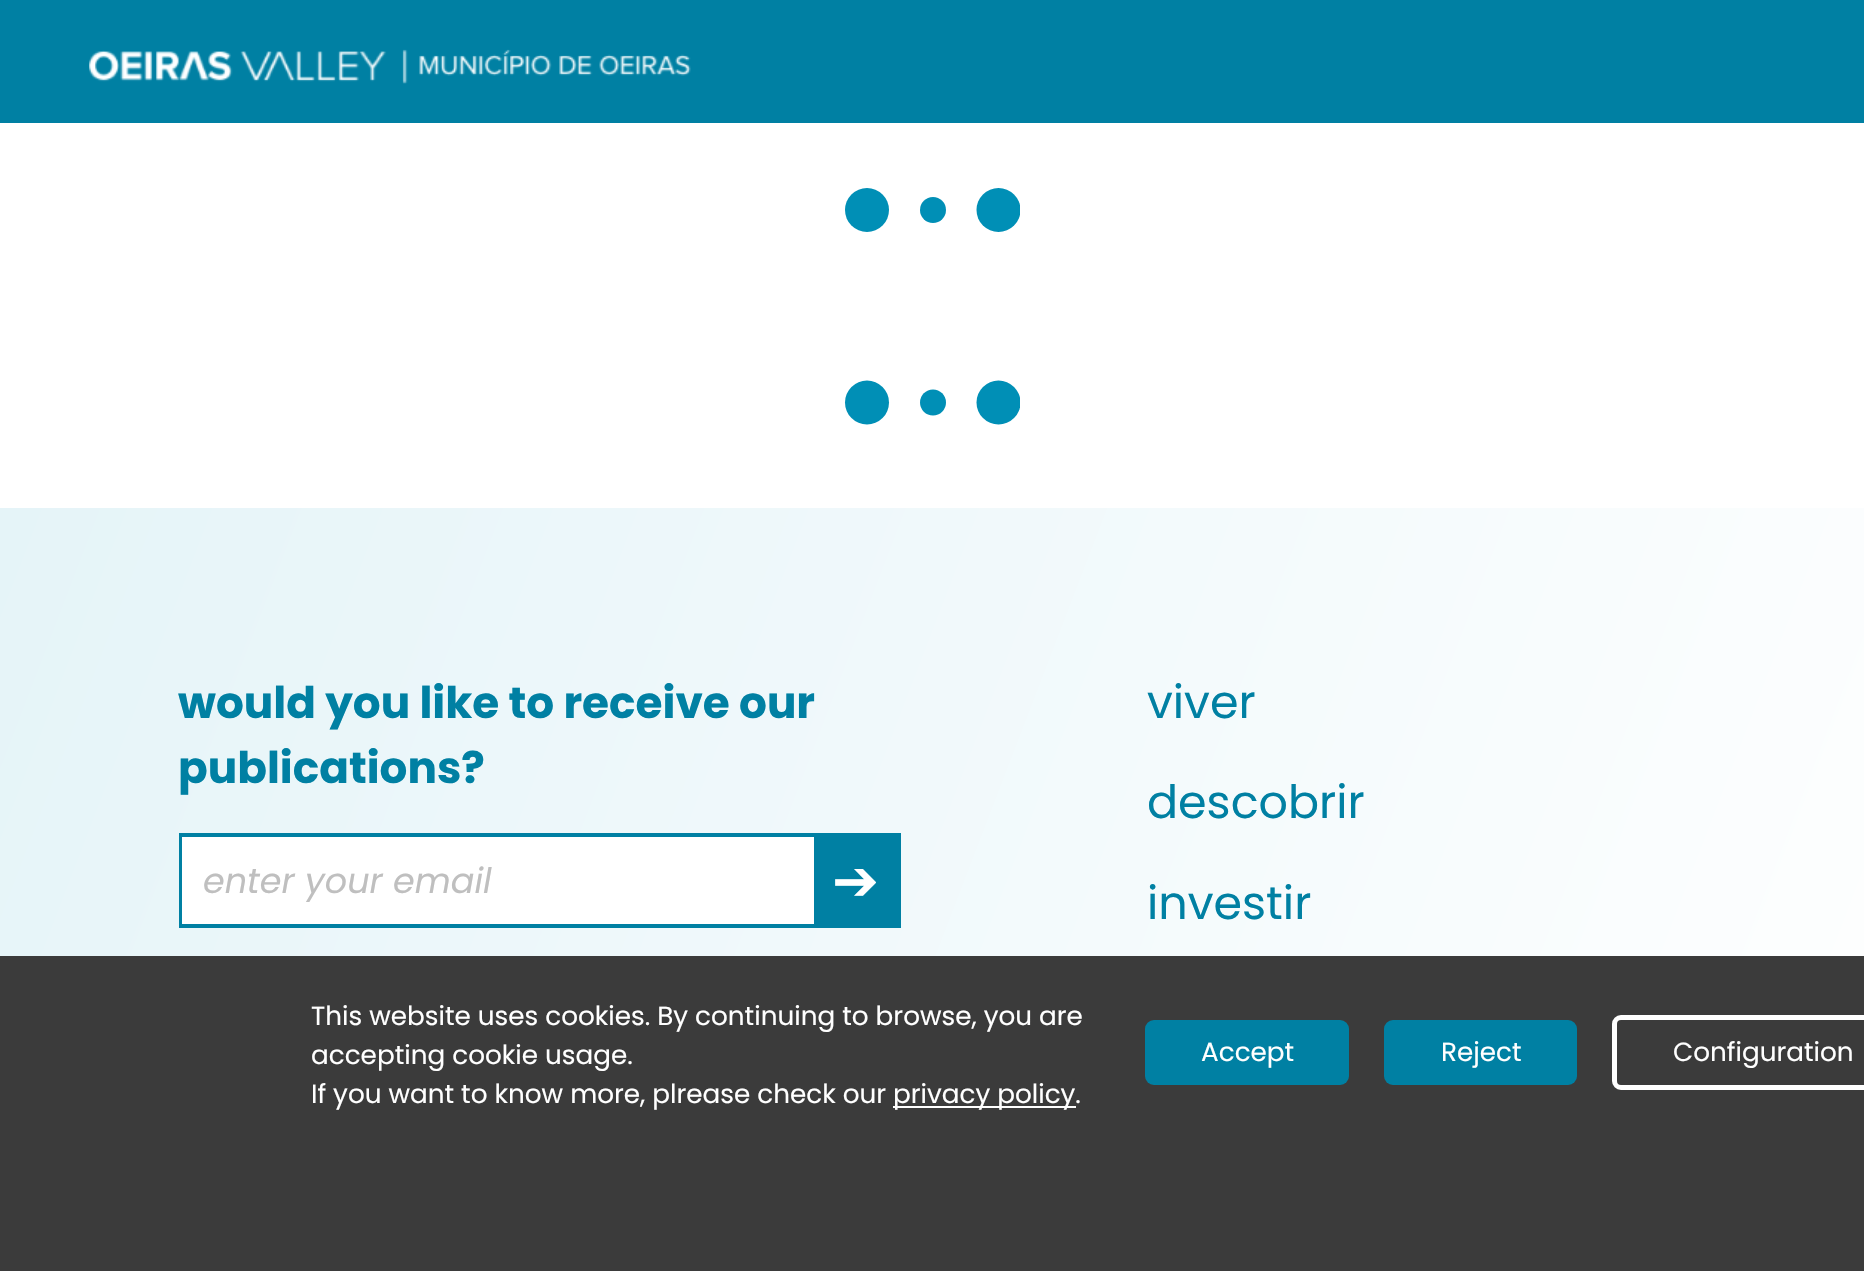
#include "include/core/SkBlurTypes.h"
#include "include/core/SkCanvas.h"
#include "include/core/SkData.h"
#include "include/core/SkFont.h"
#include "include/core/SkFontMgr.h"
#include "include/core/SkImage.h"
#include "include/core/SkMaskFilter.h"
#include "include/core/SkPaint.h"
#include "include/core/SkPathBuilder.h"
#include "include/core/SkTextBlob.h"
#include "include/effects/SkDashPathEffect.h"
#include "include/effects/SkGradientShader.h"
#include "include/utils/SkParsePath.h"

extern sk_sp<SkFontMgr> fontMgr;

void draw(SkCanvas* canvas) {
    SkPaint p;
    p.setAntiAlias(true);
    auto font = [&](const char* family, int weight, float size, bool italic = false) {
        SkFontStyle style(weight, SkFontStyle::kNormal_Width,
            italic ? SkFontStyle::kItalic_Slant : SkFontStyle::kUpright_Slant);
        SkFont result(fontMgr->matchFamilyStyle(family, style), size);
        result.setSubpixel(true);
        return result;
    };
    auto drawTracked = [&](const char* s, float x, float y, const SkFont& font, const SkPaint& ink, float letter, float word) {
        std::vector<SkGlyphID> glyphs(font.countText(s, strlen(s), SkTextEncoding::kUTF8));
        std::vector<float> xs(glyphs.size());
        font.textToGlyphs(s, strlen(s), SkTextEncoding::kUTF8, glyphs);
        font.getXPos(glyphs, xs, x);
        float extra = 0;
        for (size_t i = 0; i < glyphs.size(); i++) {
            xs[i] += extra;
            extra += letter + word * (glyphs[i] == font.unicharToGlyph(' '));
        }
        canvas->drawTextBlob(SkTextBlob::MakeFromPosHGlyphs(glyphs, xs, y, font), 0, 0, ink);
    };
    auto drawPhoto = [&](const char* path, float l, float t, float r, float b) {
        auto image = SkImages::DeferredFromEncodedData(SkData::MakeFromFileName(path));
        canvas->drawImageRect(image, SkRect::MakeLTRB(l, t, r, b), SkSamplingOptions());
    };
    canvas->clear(0xFFFFFFFF);
    p.setColor(0xFF0080A3);
    canvas->drawRect(SkRect::MakeLTRB(0, 0, 1864, 123), p);
    drawPhoto("media/1.png", 89, 49, 691, 84);
    p.setColor(0xFF008FB6);
    canvas->drawCircle(867, 210, 22, p);
    canvas->drawCircle(933, 210, 13, p);
    canvas->save();
    canvas->clipRect(SkRect::MakeLTRB(845, 123, 1020, 298));
    canvas->drawCircle(998.5f, 210, 22, p);
    canvas->restore();
    canvas->drawCircle(867, 402.5f, 22, p);
    canvas->drawCircle(933, 402.5f, 13, p);
    canvas->save();
    canvas->clipRect(SkRect::MakeLTRB(845, 315, 1020, 490));
    canvas->drawCircle(998.5f, 402.5f, 22, p);
    canvas->restore();
    {
        const SkColor colors[] = {0xFFFFFFFF, 0xFFE5F4F8};
        const float stops[] = {0, 1};
        const SkPoint ends[] = {{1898, 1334}, {-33, 593}};
        p.setShader(SkGradientShader::MakeLinear(ends, colors, stops, 2, SkTileMode::kClamp));
        p.setAlpha(255);
    }
    canvas->drawRect(SkRect::MakeLTRB(0, 508, 1864, 956), p);
    auto font1 = font("Poppins", 700, 43.75f);
    p.setShader(nullptr);
    p.setColor(0xFF0080A3);
    canvas->drawString("would you like to receive our", 178, 718, font1, p);
    canvas->drawString("publications?", 178, 783, font1, p);
    p.setStyle(SkPaint::kStroke_Style);
    p.setStrokeWidth(4);
    canvas->drawRect(SkRect::MakeLTRB(181, 835, 899, 926), p);
    p.setStyle(SkPaint::kFill_Style);
    p.setColor(0xFFFFFFFF);
    canvas->drawRect(SkRect::MakeLTRB(182, 837, 814, 924), p);
    auto font2 = font("Poppins", 400, 35, true);
    p.setColor(0xFFBFBFBF);
    canvas->drawString("enter your email", 203, 893, font2, p);
    p.setColor(0xFF0080A3);
    canvas->drawRect(SkRect::MakeLTRB(814, 837, 897, 924), p);
    auto font3 = font("DejaVu Sans", 400, 56);
    p.setColor(0xFFFFFFFF);
    drawTracked("➔", 832, 900, font3, p, 2, 0);
    auto font4 = font("Poppins", 400, 46);
    p.setColor(0xFF0080A3);
    {
        const struct { const char* s; float x, y; } items[] = {
            {"viver", 1147, 718},
            {"descobrir", 1147, 818},
            {"investir", 1147, 919},
        };
        for (auto [s, x, y] : items) {
            canvas->drawString(s, x, y, font4, p);
        }
    }
    p.setColor(0xFF3B3B3B);
    canvas->drawRect(SkRect::MakeLTRB(0, 956, 1864, 1271), p);
    auto font5 = font("Poppins", 400, 26.25f);
    p.setColor(0xFFFFFFFF);
    {
        const struct { const char* s; float x, y; } items[] = {
            {"This website uses cookies. By continuing to browse, you are", 311, 1025},
            {"accepting cookie usage.", 311, 1064},
            {"If you want to know more, plrease check our", 311, 1103},
        };
        for (auto [s, x, y] : items) {
            canvas->drawString(s, x, y, font5, p);
        }
    }
    canvas->drawRect(SkRect::MakeLTRB(893, 1106, 1076, 1108), p);
    canvas->drawString("privacy policy.", 893, 1103, font5, p);
    p.setColor(0xFF0080A3);
    canvas->drawRoundRect(SkRect::MakeLTRB(1145, 1020, 1349, 1085), 9, 9, p);
    p.setColor(0xFFFFFFFF);
    canvas->drawString("Accept", 1201, 1061, font5, p);
    p.setColor(0xFF0080A3);
    canvas->drawRoundRect(SkRect::MakeLTRB(1384, 1020, 1577, 1085), 9, 9, p);
    p.setColor(0xFFFFFFFF);
    canvas->drawString("Reject", 1441, 1061, font5, p);
    p.setStyle(SkPaint::kStroke_Style);
    p.setStrokeWidth(5);
    canvas->drawRoundRect(SkRect::MakeLTRB(1614.5f, 1017.5f, 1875.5f, 1087.5f), 6.5f, 6.5f, p);
    p.setStyle(SkPaint::kFill_Style);
    canvas->drawString("Configuration", 1673, 1061, font5, p);
}
